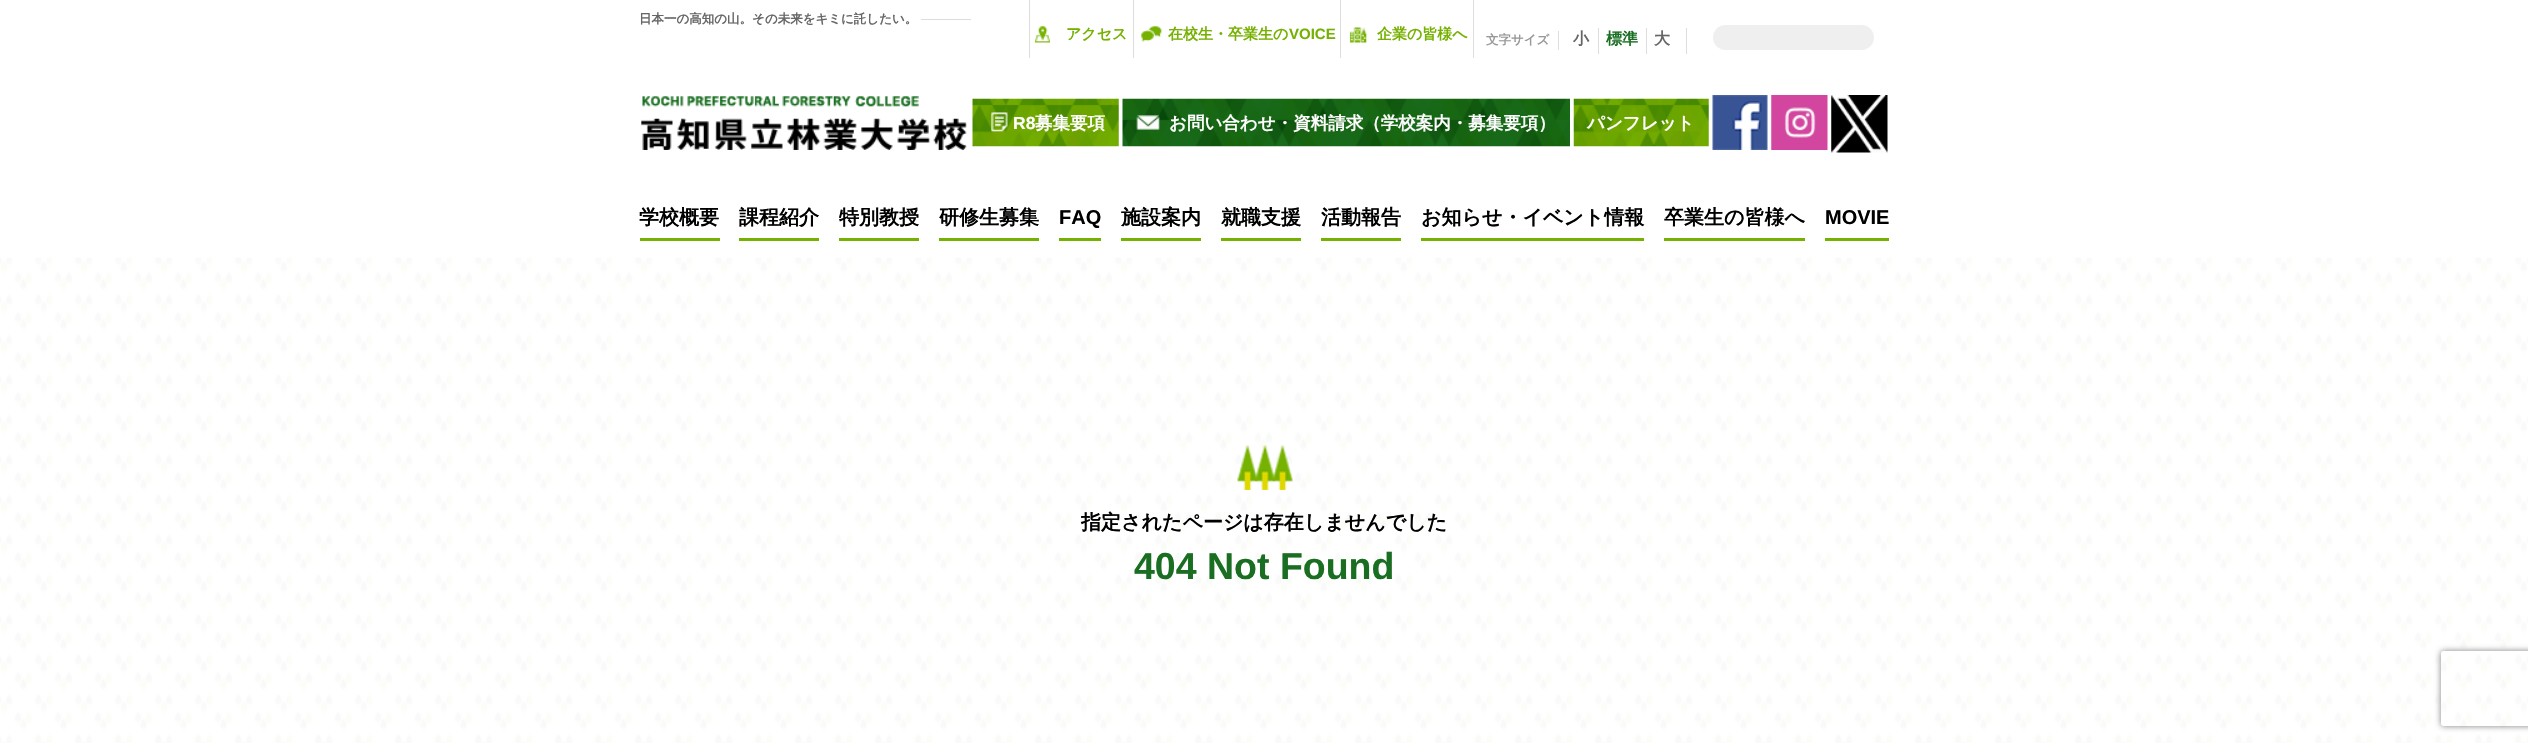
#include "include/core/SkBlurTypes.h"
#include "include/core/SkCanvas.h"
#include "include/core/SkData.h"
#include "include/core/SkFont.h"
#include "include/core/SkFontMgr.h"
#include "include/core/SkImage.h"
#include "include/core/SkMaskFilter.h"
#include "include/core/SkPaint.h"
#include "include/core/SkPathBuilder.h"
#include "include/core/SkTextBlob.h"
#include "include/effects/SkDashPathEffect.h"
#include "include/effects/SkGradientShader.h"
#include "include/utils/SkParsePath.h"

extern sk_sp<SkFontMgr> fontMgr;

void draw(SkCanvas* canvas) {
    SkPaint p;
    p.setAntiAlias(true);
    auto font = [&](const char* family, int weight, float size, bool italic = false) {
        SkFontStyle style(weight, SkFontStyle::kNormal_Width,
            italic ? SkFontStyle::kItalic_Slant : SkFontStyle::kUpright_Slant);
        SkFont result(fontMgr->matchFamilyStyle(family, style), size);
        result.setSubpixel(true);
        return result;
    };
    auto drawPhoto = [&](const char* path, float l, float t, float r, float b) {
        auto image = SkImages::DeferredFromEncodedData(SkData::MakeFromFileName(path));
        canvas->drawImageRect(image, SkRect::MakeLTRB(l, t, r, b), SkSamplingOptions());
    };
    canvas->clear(0xFFFFFFFF);
    auto font1 = font("WenQuanYi Zen Hei", 700, 12.5f);
    p.setColor(0xFF666666);
    canvas->drawString("日本一の高知の山。その未来をキミに託したい。", 639, 23, font1, p);
    p.setColor(0xFFDDDDDD);
    canvas->drawRect(SkRect::MakeLTRB(921, 19, 971, 20), p);
    canvas->drawRect(SkRect::MakeLTRB(1029, 0, 1030, 58), p);
    drawPhoto("media/1.png", 1035, 26, 1050, 43);
    auto font2 = font("WenQuanYi Zen Hei", 700, 15);
    p.setColor(0xFF75B100);
    canvas->drawString("アクセス", 1066, 39, font2, p);
    p.setColor(0xFFDDDDDD);
    canvas->drawRect(SkRect::MakeLTRB(1133, 0, 1134, 58), p);
    drawPhoto("media/2.png", 1141, 26, 1162, 42);
    p.setColor(0xFF75B100);
    canvas->drawString("在校生・卒業生の", 1168, 39, font2, p);
    auto font3 = font("Liberation Sans", 700, 15);
    canvas->drawString("VOICE", 1289, 39, font3, p);
    p.setColor(0xFFDDDDDD);
    canvas->drawRect(SkRect::MakeLTRB(1340, 0, 1341, 58), p);
    drawPhoto("media/3.png", 1349, 27, 1367, 43);
    p.setColor(0xFF75B100);
    canvas->drawString("企業の皆様へ", 1377, 39, font2, p);
    p.setColor(0xFFDDDDDD);
    canvas->drawRect(SkRect::MakeLTRB(1473, 0, 1474, 58), p);
    canvas->drawRect(SkRect::MakeLTRB(1558, 31, 1559, 50), p);
    p.setColor(0xFF999999);
    canvas->drawString("文字サイズ", 1486, 44, font1, p);
    p.setColor(0xFFDDDDDD);
    canvas->drawRect(SkRect::MakeLTRB(1686, 28, 1687, 54), p);
    canvas->drawRect(SkRect::MakeLTRB(1598, 28, 1599, 54), p);
    auto font4 = font("WenQuanYi Zen Hei", 700, 16);
    p.setColor(0xFF666666);
    canvas->drawString("小", 1573, 44, font4, p);
    p.setColor(0xFFDDDDDD);
    canvas->drawRect(SkRect::MakeLTRB(1646, 28, 1647, 54), p);
    p.setColor(0xFF196E21);
    canvas->drawString("標準", 1606, 44, font4, p);
    p.setColor(0xFF666666);
    canvas->drawString("大", 1654, 44, font4, p);
    p.setColor(0xFFEFEFEF);
    canvas->drawRoundRect(SkRect::MakeLTRB(1713, 25, 1874, 50), 12.5f, 12.5f, p);
    drawPhoto("media/4.png", 641, 96, 967, 150);
    drawPhoto("media/5.png", 972, 98, 1119, 147);
    drawPhoto("media/6.png", 991, 112, 1008, 132);
    auto font5 = font("Liberation Sans", 700, 17.5f);
    p.setColor(0xFFFFFFFF);
    canvas->drawString("R8", 1013, 129, font5, p);
    auto font6 = font("WenQuanYi Zen Hei", 700, 17.5f);
    canvas->drawString("募集要項", 1035, 129, font6, p);
    drawPhoto("media/7.png", 1122, 98, 1570, 147);
    drawPhoto("media/8.png", 1136, 115, 1160, 130);
    canvas->drawString("お問い合わせ・資料請求（学校案内・募集要項）", 1169, 129, font6, p);
    drawPhoto("media/9.png", 1573, 98, 1709, 147);
    canvas->drawString("パンフレット", 1587, 129, font6, p);
    drawPhoto("media/10.png", 1712, 95, 1768, 150);
    drawPhoto("media/11.png", 1771, 95, 1828, 150);
    drawPhoto("media/12.png", 1831, 95, 1888, 153);
    auto font7 = font("WenQuanYi Zen Hei", 700, 20);
    p.setColor(0xFF000000);
    canvas->drawString("学校概要", 639, 224, font7, p);
    p.setColor(0xFF75B100);
    canvas->drawRect(SkRect::MakeLTRB(640, 238, 720, 241), p);
    p.setColor(0xFF000000);
    canvas->drawString("課程紹介", 739, 224, font7, p);
    p.setColor(0xFF75B100);
    canvas->drawRect(SkRect::MakeLTRB(739, 238, 819, 241), p);
    p.setColor(0xFF000000);
    canvas->drawString("特別教授", 839, 224, font7, p);
    p.setColor(0xFF75B100);
    canvas->drawRect(SkRect::MakeLTRB(839, 238, 919, 241), p);
    p.setColor(0xFF000000);
    canvas->drawString("研修生募集", 939, 224, font7, p);
    p.setColor(0xFF75B100);
    canvas->drawRect(SkRect::MakeLTRB(939, 238, 1039, 241), p);
    auto font8 = font("Liberation Sans", 700, 20);
    p.setColor(0xFF000000);
    canvas->drawString("FAQ", 1059, 224, font8, p);
    p.setColor(0xFF75B100);
    canvas->drawRect(SkRect::MakeLTRB(1059, 238, 1101, 241), p);
    p.setColor(0xFF000000);
    canvas->drawString("施設案内", 1121, 224, font7, p);
    p.setColor(0xFF75B100);
    canvas->drawRect(SkRect::MakeLTRB(1121, 238, 1201, 241), p);
    p.setColor(0xFF000000);
    canvas->drawString("就職支援", 1221, 224, font7, p);
    p.setColor(0xFF75B100);
    canvas->drawRect(SkRect::MakeLTRB(1221, 238, 1301, 241), p);
    p.setColor(0xFF000000);
    canvas->drawString("活動報告", 1321, 224, font7, p);
    p.setColor(0xFF75B100);
    canvas->drawRect(SkRect::MakeLTRB(1321, 238, 1401, 241), p);
    p.setColor(0xFF000000);
    canvas->drawString("お知らせ・イベント情報", 1421, 224, font7, p);
    p.setColor(0xFF75B100);
    canvas->drawRect(SkRect::MakeLTRB(1421, 238, 1644, 241), p);
    p.setColor(0xFF000000);
    canvas->drawString("卒業生の皆様へ", 1664, 224, font7, p);
    p.setColor(0xFF75B100);
    canvas->drawRect(SkRect::MakeLTRB(1664, 238, 1805, 241), p);
    p.setColor(0xFF000000);
    canvas->drawString("MOVIE", 1825, 224, font8, p);
    p.setColor(0xFF75B100);
    canvas->drawRect(SkRect::MakeLTRB(1825, 238, 1889, 241), p);
    drawPhoto("media/13.png", 0, 257, 2528, 743);
    drawPhoto("media/14.png", 1237, 445, 1293, 490);
    p.setColor(0xFF000000);
    canvas->drawString("指定されたページは存在しませんでした", 1081, 529, font7, p);
    auto font9 = font("Liberation Sans", 700, 37.5f);
    p.setColor(0xFF196E21);
    canvas->drawString("404 Not Found", 1134, 579, font9, p);
    canvas->save();
    canvas->clipPath(SkPathBuilder(SkPathFillType::kEvenOdd).moveTo(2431, 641).lineTo(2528, 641).lineTo(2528, 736).lineTo(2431, 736).close().moveTo(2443.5f, 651).lineTo(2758.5f, 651).cubicTo(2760, 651, 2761, 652, 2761, 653.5f).lineTo(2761, 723.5f).cubicTo(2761, 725, 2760, 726, 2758.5f, 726).lineTo(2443.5f, 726).cubicTo(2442, 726, 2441, 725, 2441, 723.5f).lineTo(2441, 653.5f).cubicTo(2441, 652, 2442, 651, 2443.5f, 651).close().detach(), true);
    p.setColor(0xFF808080);
    p.setMaskFilter(SkMaskFilter::MakeBlur(kNormal_SkBlurStyle, 3));
    canvas->drawRoundRect(SkRect::MakeLTRB(2441, 651, 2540, 726), 2.5f, 2.5f, p);
    p.setMaskFilter(nullptr);
    canvas->restore();
}
